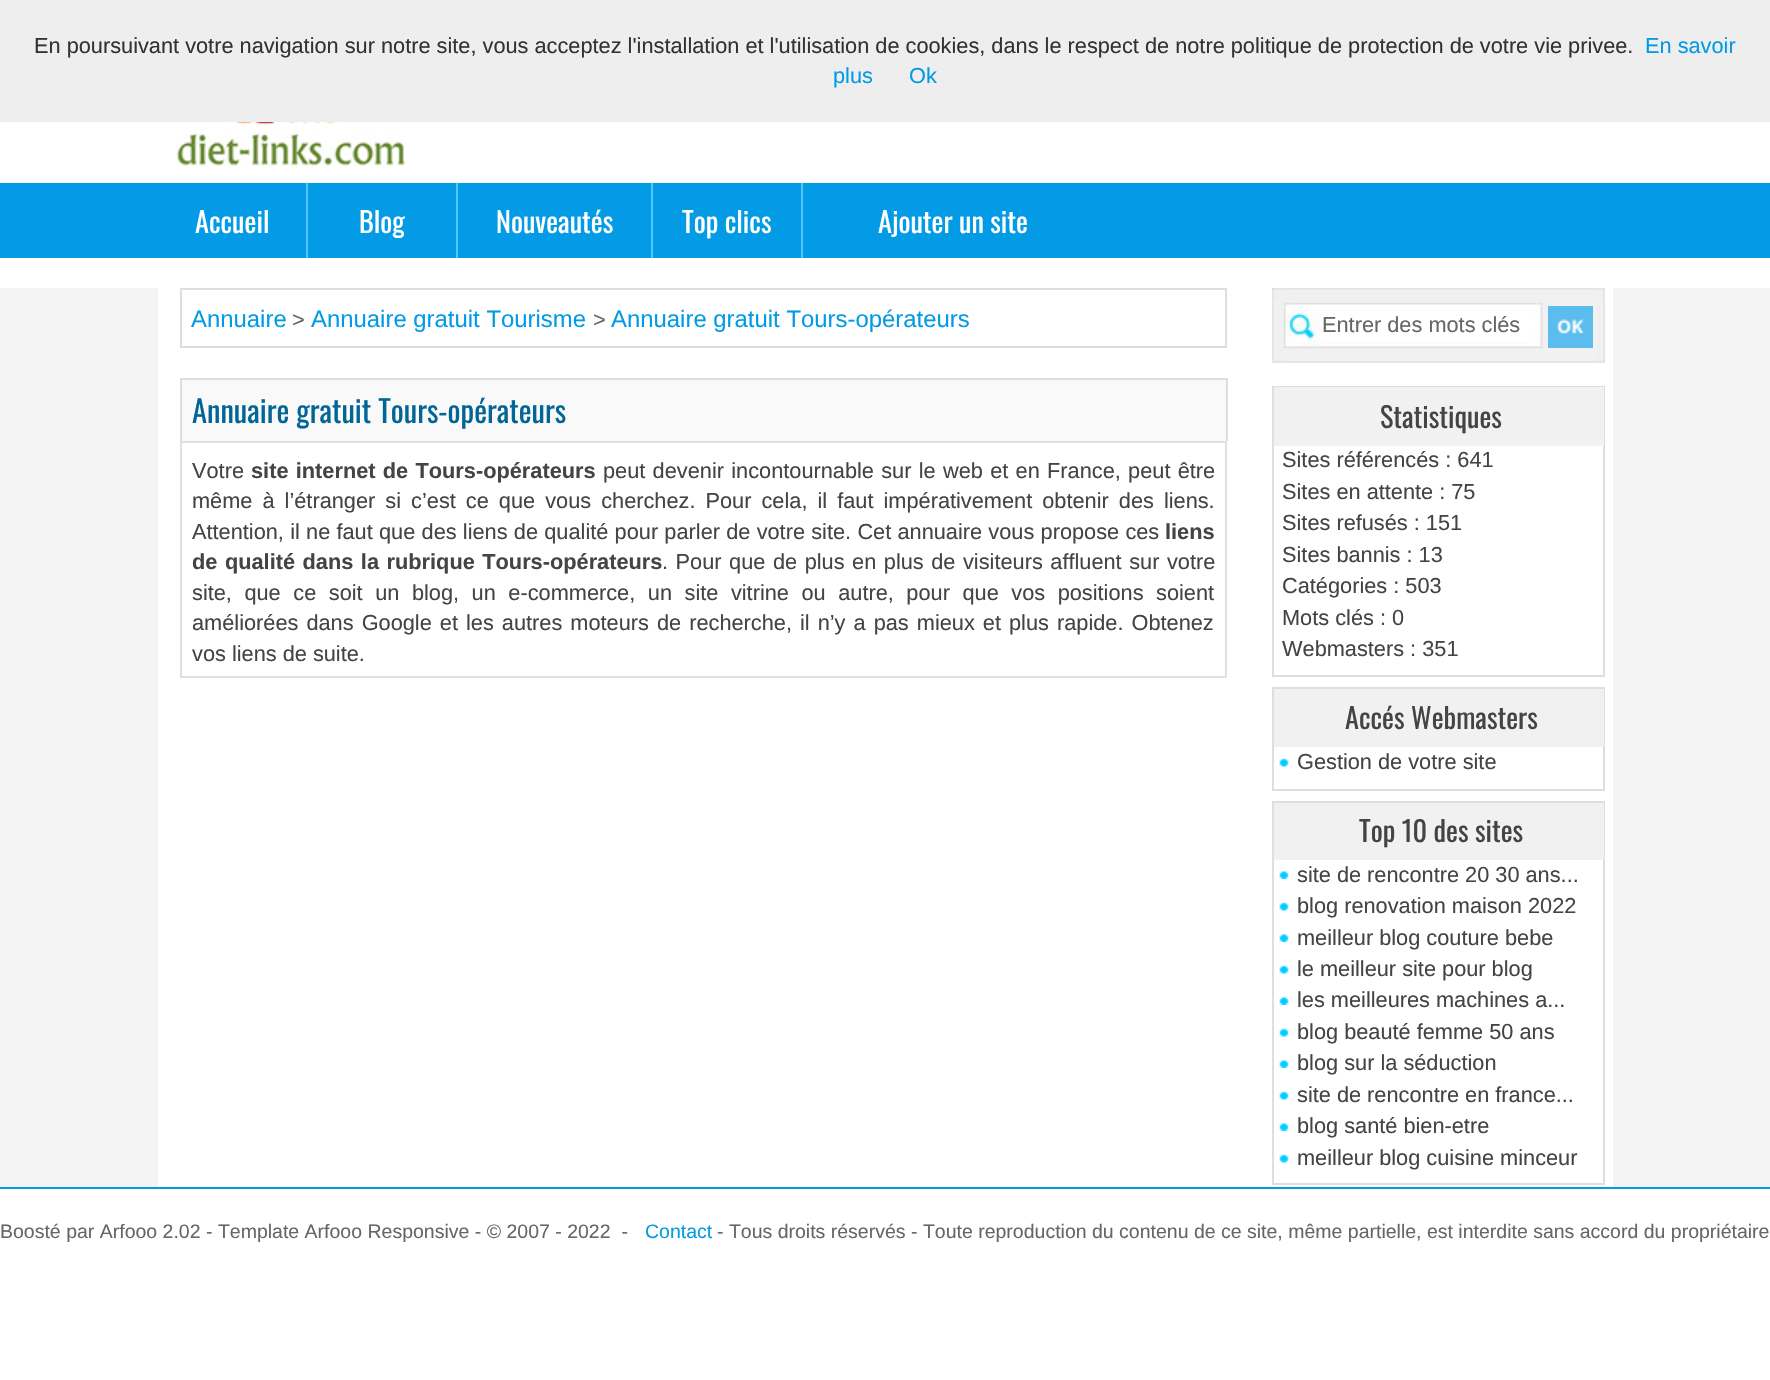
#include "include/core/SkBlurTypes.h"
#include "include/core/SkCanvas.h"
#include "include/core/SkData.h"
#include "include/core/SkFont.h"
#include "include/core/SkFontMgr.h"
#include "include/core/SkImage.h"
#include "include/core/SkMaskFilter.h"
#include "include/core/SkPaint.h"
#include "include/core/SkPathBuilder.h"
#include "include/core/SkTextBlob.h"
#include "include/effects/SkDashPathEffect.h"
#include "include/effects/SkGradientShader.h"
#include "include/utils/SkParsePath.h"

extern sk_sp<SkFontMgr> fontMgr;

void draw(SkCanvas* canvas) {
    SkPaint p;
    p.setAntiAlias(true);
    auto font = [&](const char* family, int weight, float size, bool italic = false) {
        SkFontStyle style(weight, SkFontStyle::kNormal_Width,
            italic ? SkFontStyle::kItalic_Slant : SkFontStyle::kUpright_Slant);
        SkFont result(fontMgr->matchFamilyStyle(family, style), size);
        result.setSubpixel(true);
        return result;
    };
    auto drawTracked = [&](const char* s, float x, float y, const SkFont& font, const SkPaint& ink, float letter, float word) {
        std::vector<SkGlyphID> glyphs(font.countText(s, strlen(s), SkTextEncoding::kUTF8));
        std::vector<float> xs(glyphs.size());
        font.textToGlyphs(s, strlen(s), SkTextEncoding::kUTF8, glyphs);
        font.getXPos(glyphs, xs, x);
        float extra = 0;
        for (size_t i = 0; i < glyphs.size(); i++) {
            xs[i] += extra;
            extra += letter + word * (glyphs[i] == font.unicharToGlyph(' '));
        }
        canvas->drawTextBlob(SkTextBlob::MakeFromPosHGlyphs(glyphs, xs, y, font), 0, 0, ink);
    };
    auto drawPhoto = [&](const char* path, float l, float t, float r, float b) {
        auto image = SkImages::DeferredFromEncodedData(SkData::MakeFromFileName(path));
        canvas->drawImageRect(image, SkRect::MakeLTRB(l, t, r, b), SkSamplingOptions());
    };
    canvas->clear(0xFFFFFFFF);
    p.setColor(0xFFEEEEEE);
    canvas->drawRect(SkRect::MakeLTRB(0, 0, 1770, 122), p);
    auto font1 = font("Liberation Sans", 400, 21.75f);
    p.setColor(0xFF333333);
    canvas->drawString("En poursuivant votre navigation sur notre site, vous acceptez l'installation et l'utilisation de cookies, dans le respect de notre politique de protection de votre vie privee.", 34, 53, font1, p);
    p.setColor(0xFF039BE5);
    {
        const struct { const char* s; float x, y; } items[] = {
            {"En savoir", 1645, 53},
            {"plus", 833, 83},
            {"Ok", 909, 83},
        };
        for (auto [s, x, y] : items) {
            canvas->drawString(s, x, y, font1, p);
        }
    }
    drawPhoto("media/1.png", 176, 122, 406, 166);
    canvas->drawRect(SkRect::MakeLTRB(0, 183, 1770, 258), p);
    p.setColor(0xFF51C5FD);
    canvas->drawRect(SkRect::MakeLTRB(306, 183, 308, 258), p);
    auto font2 = font("Oswald", 400, 28.25f);
    p.setColor(0xFFFFFFFF);
    canvas->drawString("Accueil", 195, 233, font2, p);
    p.setColor(0xFF51C5FD);
    canvas->drawRect(SkRect::MakeLTRB(456, 183, 458, 258), p);
    p.setColor(0xFFFFFFFF);
    canvas->drawString("Blog", 359, 233, font2, p);
    p.setColor(0xFF51C5FD);
    canvas->drawRect(SkRect::MakeLTRB(651, 183, 653, 258), p);
    p.setColor(0xFFFFFFFF);
    canvas->drawString("Nouveautés", 496, 233, font2, p);
    p.setColor(0xFF51C5FD);
    canvas->drawRect(SkRect::MakeLTRB(801, 183, 803, 258), p);
    p.setColor(0xFFFFFFFF);
    canvas->drawString("Top clics", 682, 233, font2, p);
    canvas->drawString("Ajouter un site", 878, 233, font2, p);
    p.setColor(0xFFF4F4F4);
    canvas->drawRect(SkRect::MakeLTRB(0, 288, 1770, 1187), p);
    p.setColor(0xFFFFFFFF);
    canvas->drawRect(SkRect::MakeLTRB(158, 288, 1613, 1187), p);
    p.setStyle(SkPaint::kStroke_Style);
    p.setStrokeWidth(2);
    p.setColor(0xFFDEDEDE);
    canvas->drawRect(SkRect::MakeLTRB(181, 289, 1226, 347), p);
    auto font3 = font("Liberation Sans", 400, 23.9f);
    p.setStyle(SkPaint::kFill_Style);
    p.setColor(0xFF039BE5);
    canvas->drawString("Annuaire", 191, 327, font3, p);
    p.setColor(0xFF666666);
    canvas->drawString(">", 292, 327, font1, p);
    p.setColor(0xFF039BE5);
    canvas->drawString("Annuaire gratuit Tourisme", 311, 327, font3, p);
    p.setColor(0xFF666666);
    canvas->drawString(">", 593, 327, font1, p);
    p.setColor(0xFF039BE5);
    canvas->drawString("Annuaire gratuit Tours-opérateurs", 611, 327, font3, p);
    {
        const struct { float l, t, r, b; SkColor color; } items[] = {
            {182, 380, 1226, 441, 0xFFF9F9F9},
            {180, 378, 1227, 380, 0xFFDEDEDE},
            {1226, 378, 1228, 441, 0xFFDEDEDE},
            {180, 378, 182, 441, 0xFFDEDEDE},
        };
        for (auto [l, t, r, b, color] : items) {
            p.setColor(color);
            canvas->drawRect(SkRect::MakeLTRB(l, t, r, b), p);
        }
    }
    auto font4 = font("Oswald", 400, 30.5f);
    p.setColor(0xFF016696);
    canvas->drawString("Annuaire gratuit Tours-opérateurs", 192, 423, font4, p);
    p.setStyle(SkPaint::kStroke_Style);
    p.setColor(0xFFE0E0E0);
    canvas->drawRect(SkRect::MakeLTRB(181, 442, 1226, 677), p);
    p.setStyle(SkPaint::kFill_Style);
    p.setColor(0xFF444444);
    canvas->drawString("Votre", 192, 478, font1, p);
    auto font5 = font("Liberation Sans", 700, 21.75f);
    drawTracked("site internet de Tours-opérateurs", 251, 478, font5, p, 0, 1.25f);
    drawTracked("peut devenir incontournable sur le web et en France, peut être", 603, 478, font1, p, 0, 1.25f);
    drawTracked("même à l’étranger si c’est ce que vous cherchez. Pour cela, il faut impérativement obtenir des liens.", 192, 508, font1, p, 0, 4);
    drawTracked("Attention, il ne faut que des liens de qualité pour parler de votre site. Cet annuaire vous propose ces", 192, 539, font1, p, 0, 0.2f);
    canvas->drawString("liens", 1165, 539, font5, p);
    drawTracked("de qualité dans la rubrique Tours-opérateurs", 192, 569, font5, p, 0, 1.5f);
    drawTracked(". Pour que de plus en plus de visiteurs affluent sur votre", 662, 569, font1, p, 0, 1.5f);
    drawTracked("site, que ce soit un blog, un e-commerce, un site vitrine ou autre, pour que vos positions soient", 192, 600, font1, p, 0, 6.5f);
    drawTracked("améliorées dans Google et les autres moteurs de recherche, il n’y a pas mieux et plus rapide. Obtenez", 192, 630, font1, p, 0, 2);
    canvas->drawString("vos liens de suite.", 192, 661, font1, p);
    drawPhoto("media/2.png", 1272, 288, 1605, 363);
    p.setColor(0xFFFFFFFF);
    canvas->drawRect(SkRect::MakeLTRB(1320, 322, 1321, 337), p);
    p.setColor(0xFF666666);
    canvas->drawString("Entrer des mots clés", 1322, 332, font1, p);
    drawPhoto("media/3.png", 1548, 306, 1593, 348);
    p.setStyle(SkPaint::kStroke_Style);
    p.setColor(0xFFDEDEDE);
    canvas->drawRect(SkRect::MakeLTRB(1273, 387, 1604, 676), p);
    p.setStyle(SkPaint::kFill_Style);
    p.setColor(0xFFF1F1F1);
    canvas->drawRect(SkRect::MakeLTRB(1274, 387, 1604, 446), p);
    p.setColor(0xFF444444);
    canvas->drawString("Statistiques", 1380, 428, font2, p);
    {
        const struct { const char* s; float x, y; } items[] = {
            {"Sites référencés : 641", 1282, 467},
            {"Sites en attente : 75", 1282, 499},
            {"Sites refusés : 151", 1282, 530},
            {"Sites bannis : 13", 1282, 562},
            {"Catégories : 503", 1282, 593},
            {"Mots clés : 0", 1282, 625},
            {"Webmasters : 351", 1282, 656},
        };
        for (auto [s, x, y] : items) {
            canvas->drawString(s, x, y, font1, p);
        }
    }
    p.setStyle(SkPaint::kStroke_Style);
    p.setColor(0xFFDEDEDE);
    canvas->drawRect(SkRect::MakeLTRB(1273, 688, 1604, 790), p);
    p.setStyle(SkPaint::kFill_Style);
    p.setColor(0xFFF1F1F1);
    canvas->drawRect(SkRect::MakeLTRB(1274, 689, 1604, 747), p);
    p.setColor(0xFF444444);
    canvas->drawString("Accés Webmasters", 1345, 729, font2, p);
    drawPhoto("media/4.png", 1279, 758, 1289, 767);
    canvas->drawString("Gestion de votre site", 1297, 769, font1, p);
    p.setStyle(SkPaint::kStroke_Style);
    p.setColor(0xFFDEDEDE);
    canvas->drawRect(SkRect::MakeLTRB(1273, 802, 1604, 1184), p);
    p.setStyle(SkPaint::kFill_Style);
    p.setColor(0xFFF1F1F1);
    canvas->drawRect(SkRect::MakeLTRB(1274, 803, 1604, 860), p);
    p.setColor(0xFF444444);
    canvas->drawString("Top 10 des sites", 1359, 842, font2, p);
    drawPhoto("media/5.png", 1279, 871, 1289, 879);
    canvas->drawString("site de rencontre 20 30 ans...", 1297, 882, font1, p);
    drawPhoto("media/4.png", 1279, 902, 1289, 911);
    canvas->drawString("blog renovation maison 2022", 1297, 913, font1, p);
    drawPhoto("media/5.png", 1279, 934, 1289, 942);
    canvas->drawString("meilleur blog couture bebe", 1297, 945, font1, p);
    drawPhoto("media/4.png", 1279, 965, 1289, 974);
    canvas->drawString("le meilleur site pour blog", 1297, 976, font1, p);
    drawPhoto("media/5.png", 1279, 997, 1289, 1005);
    canvas->drawString("les meilleures machines a...", 1297, 1007, font1, p);
    drawPhoto("media/4.png", 1279, 1028, 1289, 1037);
    canvas->drawString("blog beauté femme 50 ans", 1297, 1039, font1, p);
    drawPhoto("media/5.png", 1279, 1060, 1289, 1068);
    canvas->drawString("blog sur la séduction", 1297, 1070, font1, p);
    drawPhoto("media/4.png", 1279, 1091, 1289, 1100);
    canvas->drawString("site de rencontre en france...", 1297, 1102, font1, p);
    drawPhoto("media/5.png", 1279, 1123, 1289, 1131);
    canvas->drawString("blog santé bien-etre", 1297, 1133, font1, p);
    drawPhoto("media/4.png", 1279, 1154, 1289, 1163);
    canvas->drawString("meilleur blog cuisine minceur", 1297, 1165, font1, p);
    p.setColor(0xFF039BE5);
    canvas->drawRect(SkRect::MakeLTRB(0, 1187, 1770, 1189), p);
    auto font6 = font("Liberation Sans", 400, 19.5f);
    p.setColor(0xFF666666);
    canvas->drawString("Boosté par Arfooo 2.02 - Template Arfooo Responsive - © 2007 - 2022  -", 0, 1238, font6, p);
    p.setColor(0xFF039BE5);
    canvas->drawString("Contact", 645, 1238, font6, p);
    p.setColor(0xFF666666);
    canvas->drawString("- Tous droits réservés - Toute reproduction du contenu de ce site, même partielle, est interdite sans accord du propriétaire", 717, 1238, font6, p);
}
